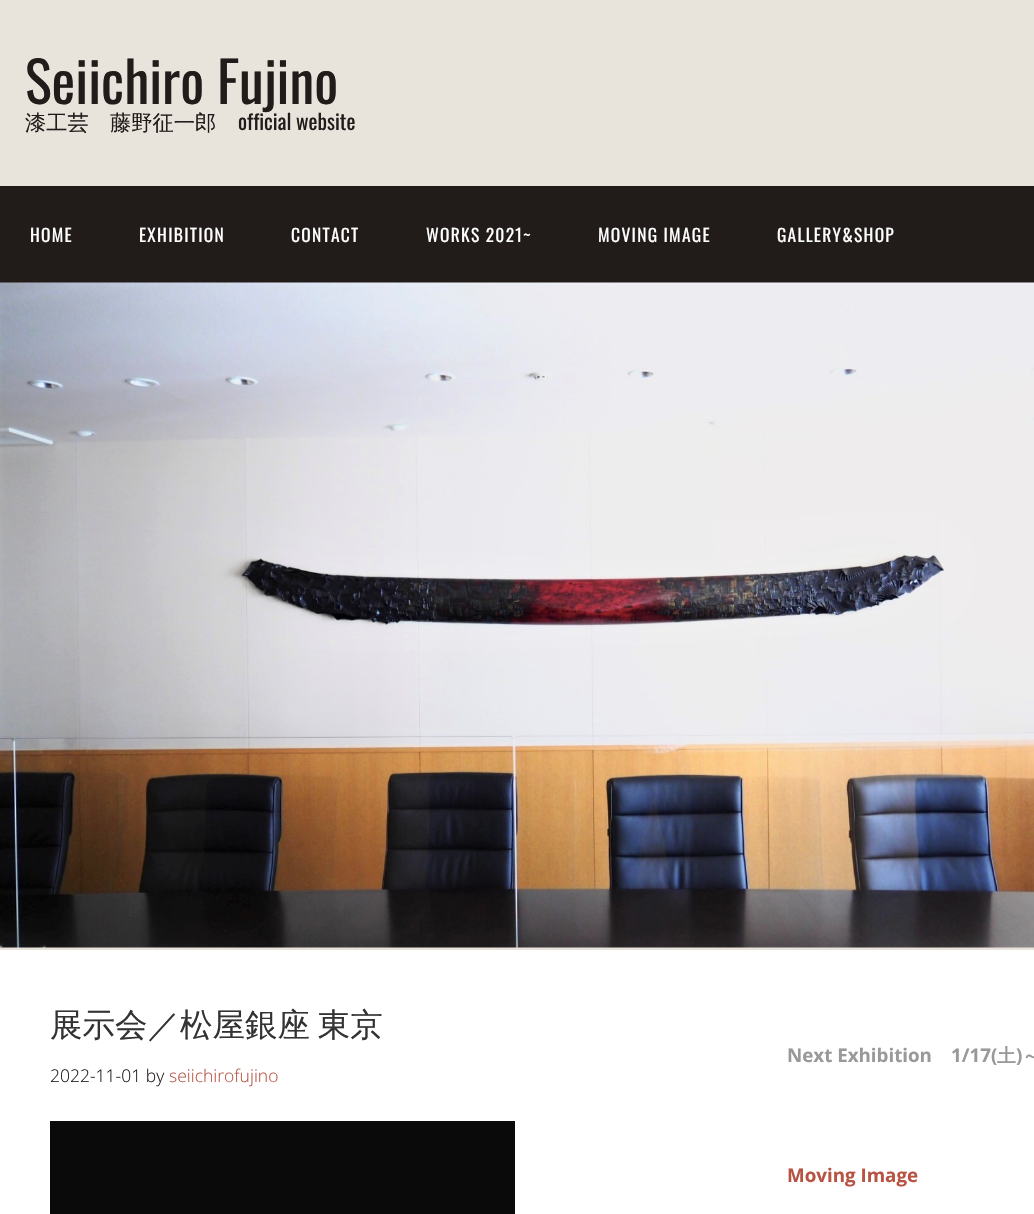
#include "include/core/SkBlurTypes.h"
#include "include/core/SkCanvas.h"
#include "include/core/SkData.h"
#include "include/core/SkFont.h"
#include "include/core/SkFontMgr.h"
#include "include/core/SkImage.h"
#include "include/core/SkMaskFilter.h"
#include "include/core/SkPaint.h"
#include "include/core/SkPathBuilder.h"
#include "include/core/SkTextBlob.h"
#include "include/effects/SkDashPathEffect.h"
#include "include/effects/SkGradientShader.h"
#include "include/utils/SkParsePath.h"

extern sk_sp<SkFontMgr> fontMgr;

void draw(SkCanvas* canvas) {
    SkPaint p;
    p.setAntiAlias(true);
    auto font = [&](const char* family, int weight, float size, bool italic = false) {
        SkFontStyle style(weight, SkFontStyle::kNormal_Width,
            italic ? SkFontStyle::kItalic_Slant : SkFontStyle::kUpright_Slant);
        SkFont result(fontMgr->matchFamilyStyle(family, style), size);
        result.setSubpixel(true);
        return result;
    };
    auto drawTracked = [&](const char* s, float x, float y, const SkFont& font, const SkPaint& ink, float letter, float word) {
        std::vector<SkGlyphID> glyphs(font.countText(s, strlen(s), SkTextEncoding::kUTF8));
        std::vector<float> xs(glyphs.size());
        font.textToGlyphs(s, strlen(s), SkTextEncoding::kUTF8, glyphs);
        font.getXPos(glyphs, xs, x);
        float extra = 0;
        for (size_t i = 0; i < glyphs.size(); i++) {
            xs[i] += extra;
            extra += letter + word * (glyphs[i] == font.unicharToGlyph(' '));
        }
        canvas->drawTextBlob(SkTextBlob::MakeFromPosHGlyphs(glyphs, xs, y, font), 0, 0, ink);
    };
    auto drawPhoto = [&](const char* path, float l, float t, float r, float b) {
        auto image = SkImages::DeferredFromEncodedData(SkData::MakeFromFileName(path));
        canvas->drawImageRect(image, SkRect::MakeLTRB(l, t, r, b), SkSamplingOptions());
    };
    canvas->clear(0xFFE8E4DC);
    auto font1 = font("Oswald", 400, 56.25f);
    p.setColor(0xFF211B1A);
    canvas->drawString("Seiichiro Fujino", 25, 104, font1, p);
    auto font2 = font("WenQuanYi Zen Hei", 500, 21.25f);
    canvas->drawString("漆工芸　藤野征一郎", 25, 130, font2, p);
    auto font3 = font("Oswald", 400, 21.25f);
    canvas->drawString("official website", 238, 130, font3, p);
    canvas->drawRect(SkRect::MakeLTRB(0, 186, 1034, 283), p);
    auto font4 = font("Oswald", 400, 17.5f);
    p.setColor(0xFFFFFFFF);
    {
        const struct { const char* s; float x, y; } items[] = {
            {"HOME", 30, 242},
            {"EXHIBITION", 139, 242},
            {"CONTACT", 291, 242},
            {"WORKS 2021~", 426, 242},
            {"MOVING IMAGE", 598, 242},
            {"GALLERY&SHOP", 777, 242},
        };
        for (auto [s, x, y] : items) {
            drawTracked(s, x, y, font4, p, 1.25f, 0);
        }
    }
    drawPhoto("media/1.png", 0, 282, 1034, 948);
    canvas->drawRect(SkRect::MakeLTRB(0, 950, 1034, 1214), p);
    auto font5 = font("WenQuanYi Zen Hei", 500, 32.5f);
    p.setColor(0xFF333333);
    drawTracked("展示会／松屋銀座 東京", 50, 1036, font5, p, 0, -2);
    auto font6 = font("Open Sans", 300, 17.5f);
    p.setColor(0xFF211B1A);
    canvas->drawString("2022-11-01 by", 50, 1082, font6, p);
    p.setColor(0xFFB75343);
    canvas->drawString("seiichirofujino", 169, 1082, font6, p);
    p.setColor(0xFF0B0A0B);
    canvas->drawRect(SkRect::MakeLTRB(50, 1121, 515, 1214), p);
    auto font7 = font("Open Sans", 700, 18.75f);
    p.setColor(0xFF999999);
    canvas->drawString("Next Exhibition", 787, 1062, font7, p);
    canvas->drawString("1/17(", 951, 1062, font7, p);
    auto font8 = font("WenQuanYi Zen Hei", 700, 18.75f);
    canvas->drawString("土", 997, 1062, font8, p);
    canvas->drawString(")", 1016, 1062, font7, p);
    canvas->drawString("～", 1022, 1062, font8, p);
    p.setColor(0xFFB75343);
    canvas->drawString("Moving Image", 787, 1182, font7, p);
}
